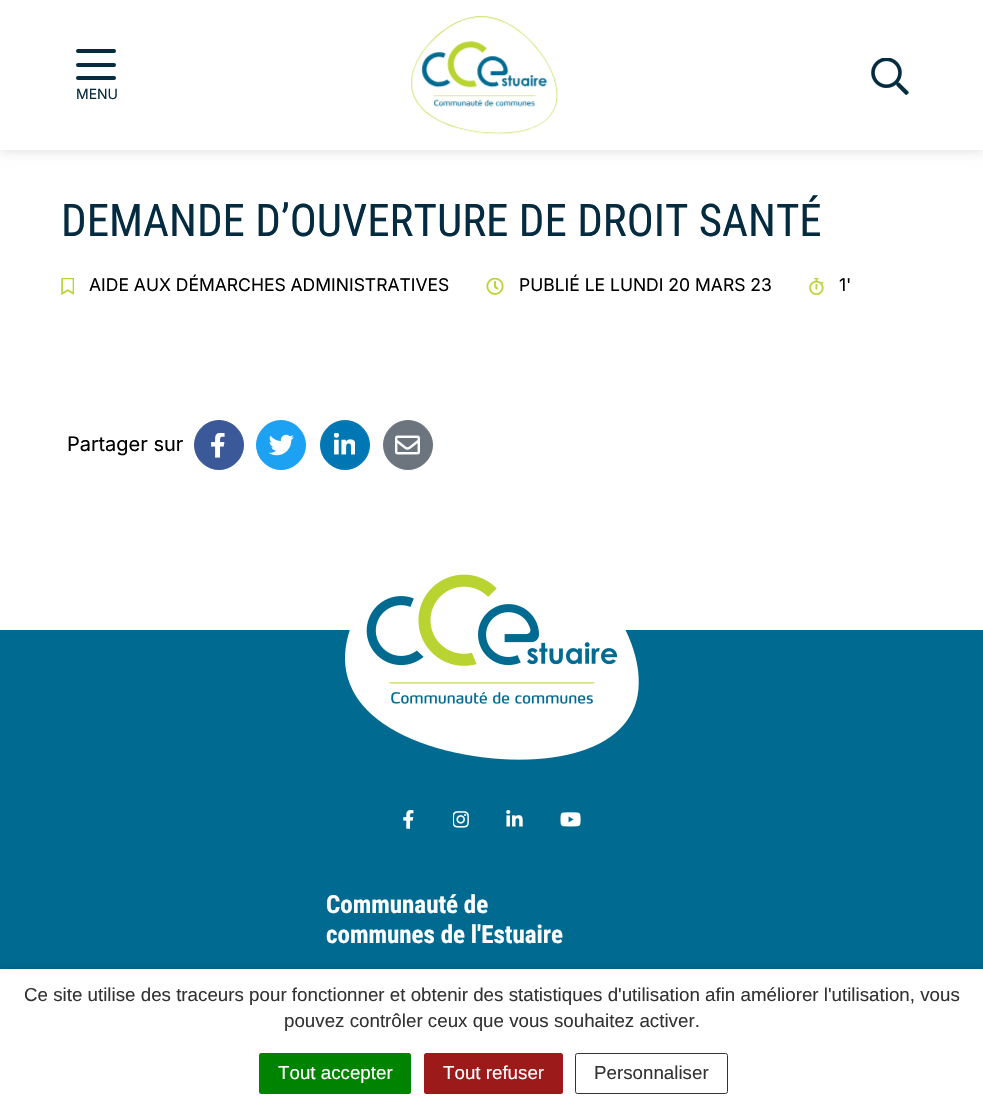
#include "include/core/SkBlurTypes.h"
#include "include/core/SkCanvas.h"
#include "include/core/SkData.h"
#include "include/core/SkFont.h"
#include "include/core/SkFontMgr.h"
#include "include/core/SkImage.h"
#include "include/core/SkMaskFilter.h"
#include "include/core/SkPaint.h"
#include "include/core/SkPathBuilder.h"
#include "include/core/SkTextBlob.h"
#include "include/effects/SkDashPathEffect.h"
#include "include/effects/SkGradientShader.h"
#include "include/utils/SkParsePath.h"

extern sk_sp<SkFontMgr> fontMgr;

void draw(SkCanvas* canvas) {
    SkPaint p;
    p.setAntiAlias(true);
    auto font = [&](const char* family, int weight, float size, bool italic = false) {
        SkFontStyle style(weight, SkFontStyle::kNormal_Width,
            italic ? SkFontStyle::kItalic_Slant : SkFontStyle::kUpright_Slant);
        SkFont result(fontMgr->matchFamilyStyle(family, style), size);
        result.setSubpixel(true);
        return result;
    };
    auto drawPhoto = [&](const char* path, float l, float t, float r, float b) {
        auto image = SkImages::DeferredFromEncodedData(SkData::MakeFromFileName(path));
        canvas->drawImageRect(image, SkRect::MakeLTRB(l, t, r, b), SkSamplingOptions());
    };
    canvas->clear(0xFFFFFFFF);
    p.setColor(0x26000000);
    p.setMaskFilter(SkMaskFilter::MakeBlur(kNormal_SkBlurStyle, 6));
    canvas->drawRect(SkRect::MakeLTRB(0, 0, 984, 150), p);
    p.setMaskFilter(nullptr);
    p.setColor(0xFFFFFFFF);
    canvas->drawRect(SkRect::MakeLTRB(0, 0, 983, 150), p);
    p.setColor(0xFF052B40);
    canvas->drawRoundRect(SkRect::MakeLTRB(76, 49, 116, 53), 2, 2, p);
    canvas->drawRoundRect(SkRect::MakeLTRB(76, 63, 116, 67), 2, 2, p);
    canvas->drawRoundRect(SkRect::MakeLTRB(76, 76, 116, 80), 2, 2, p);
    auto font1 = font("Inter", 400, 14);
    canvas->drawString("MENU", 76, 99, font1, p);
    drawPhoto("media/1.png", 411, 16, 559, 135);
    drawPhoto("media/2.png", 871, 58, 909, 95);
    auto font2 = font("Roboto Condensed", 400, 45);
    canvas->drawString("DEMANDE D’OUVERTURE DE DROIT SANTÉ", 61, 236, font2, p);
    drawPhoto("media/3.png", 61, 278, 74, 295);
    auto font3 = font("Inter", 400, 17.5f);
    p.setColor(0xFF000000);
    canvas->drawString("AIDE AUX DÉMARCHES ADMINISTRATIVES", 89, 291, font3, p);
    drawPhoto("media/4.png", 486, 278, 504, 295);
    canvas->drawString("PUBLIÉ LE LUNDI 20 MARS 23", 519, 291, font3, p);
    drawPhoto("media/5.png", 809, 278, 824, 295);
    canvas->drawString("1'", 839, 291, font3, p);
    auto font4 = font("Inter", 400, 20);
    canvas->drawString("Partager sur", 67, 451, font4, p);
    p.setColor(0xFF3B5998);
    canvas->drawCircle(219, 445, 24.5f, p);
    p.setStyle(SkPaint::kStroke_Style);
    p.setStrokeWidth(1);
    canvas->drawCircle(219, 445, 24.5f, p);
    drawPhoto("media/6.png", 211, 433, 225, 458);
    p.setStyle(SkPaint::kFill_Style);
    p.setColor(0xFF1DA1F2);
    canvas->drawCircle(281, 445, 24.5f, p);
    p.setStyle(SkPaint::kStroke_Style);
    canvas->drawCircle(281, 445, 24.5f, p);
    drawPhoto("media/7.png", 269, 434, 294, 456);
    p.setStyle(SkPaint::kFill_Style);
    p.setColor(0xFF0077B5);
    canvas->drawCircle(345, 445, 24.5f, p);
    p.setStyle(SkPaint::kStroke_Style);
    canvas->drawCircle(345, 445, 24.5f, p);
    drawPhoto("media/8.png", 334, 433, 355, 455);
    p.setStyle(SkPaint::kFill_Style);
    p.setColor(0xFF6C757D);
    canvas->drawCircle(408, 445, 24.5f, p);
    p.setStyle(SkPaint::kStroke_Style);
    canvas->drawCircle(408, 445, 24.5f, p);
    drawPhoto("media/9.png", 395, 435, 420, 455);
    p.setStyle(SkPaint::kFill_Style);
    p.setColor(0xFF006A90);
    canvas->drawRect(SkRect::MakeLTRB(0, 630, 983, 969), p);
    drawPhoto("media/10.png", 345, 574, 639, 760);
    drawPhoto("media/11.png", 403, 810, 414, 829);
    drawPhoto("media/12.png", 453, 811, 469, 828);
    drawPhoto("media/13.png", 506, 810, 523, 827);
    drawPhoto("media/14.png", 560, 812, 581, 827);
    auto font5 = font("Roboto Condensed", 700, 25);
    p.setColor(0xFFFFFFFF);
    canvas->drawString("Communauté de", 326, 913, font5, p);
    canvas->drawString("communes de l'Estuaire", 326, 943, font5, p);
    p.setColor(0x80000000);
    p.setMaskFilter(SkMaskFilter::MakeBlur(kNormal_SkBlurStyle, 6));
    canvas->drawRect(SkRect::MakeLTRB(0, 975, 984, 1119), p);
    p.setMaskFilter(nullptr);
    p.setColor(0xFFFFFFFF);
    canvas->drawRect(SkRect::MakeLTRB(0, 969, 983, 1112), p);
    auto font6 = font("Liberation Sans", 400, 18.75f);
    p.setColor(0xFF333333);
    canvas->drawString("Ce site utilise des traceurs pour fonctionner et obtenir des statistiques d'utilisation afin améliorer l'utilisation, vous", 24, 1001, font6, p);
    canvas->drawString("pouvez contrôler ceux que vous souhaitez activer.", 284, 1027, font6, p);
    p.setColor(0xFF008300);
    canvas->drawRoundRect(SkRect::MakeLTRB(259, 1053, 411, 1094), 2.5f, 2.5f, p);
    p.setColor(0xFFFFFFFF);
    canvas->drawString("Tout accepter", 278, 1079, font6, p);
    p.setColor(0xFF9C1A1A);
    canvas->drawRoundRect(SkRect::MakeLTRB(424, 1053, 563, 1094), 2.5f, 2.5f, p);
    p.setColor(0xFFFFFFFF);
    canvas->drawString("Tout refuser", 443, 1079, font6, p);
    p.setStyle(SkPaint::kStroke_Style);
    p.setColor(0xFF333333);
    canvas->drawRoundRect(SkRect::MakeLTRB(575.5f, 1053.5f, 727.5f, 1093.5f), 2, 2, p);
    p.setStyle(SkPaint::kFill_Style);
    canvas->drawString("Personnaliser", 594, 1079, font6, p);
}
